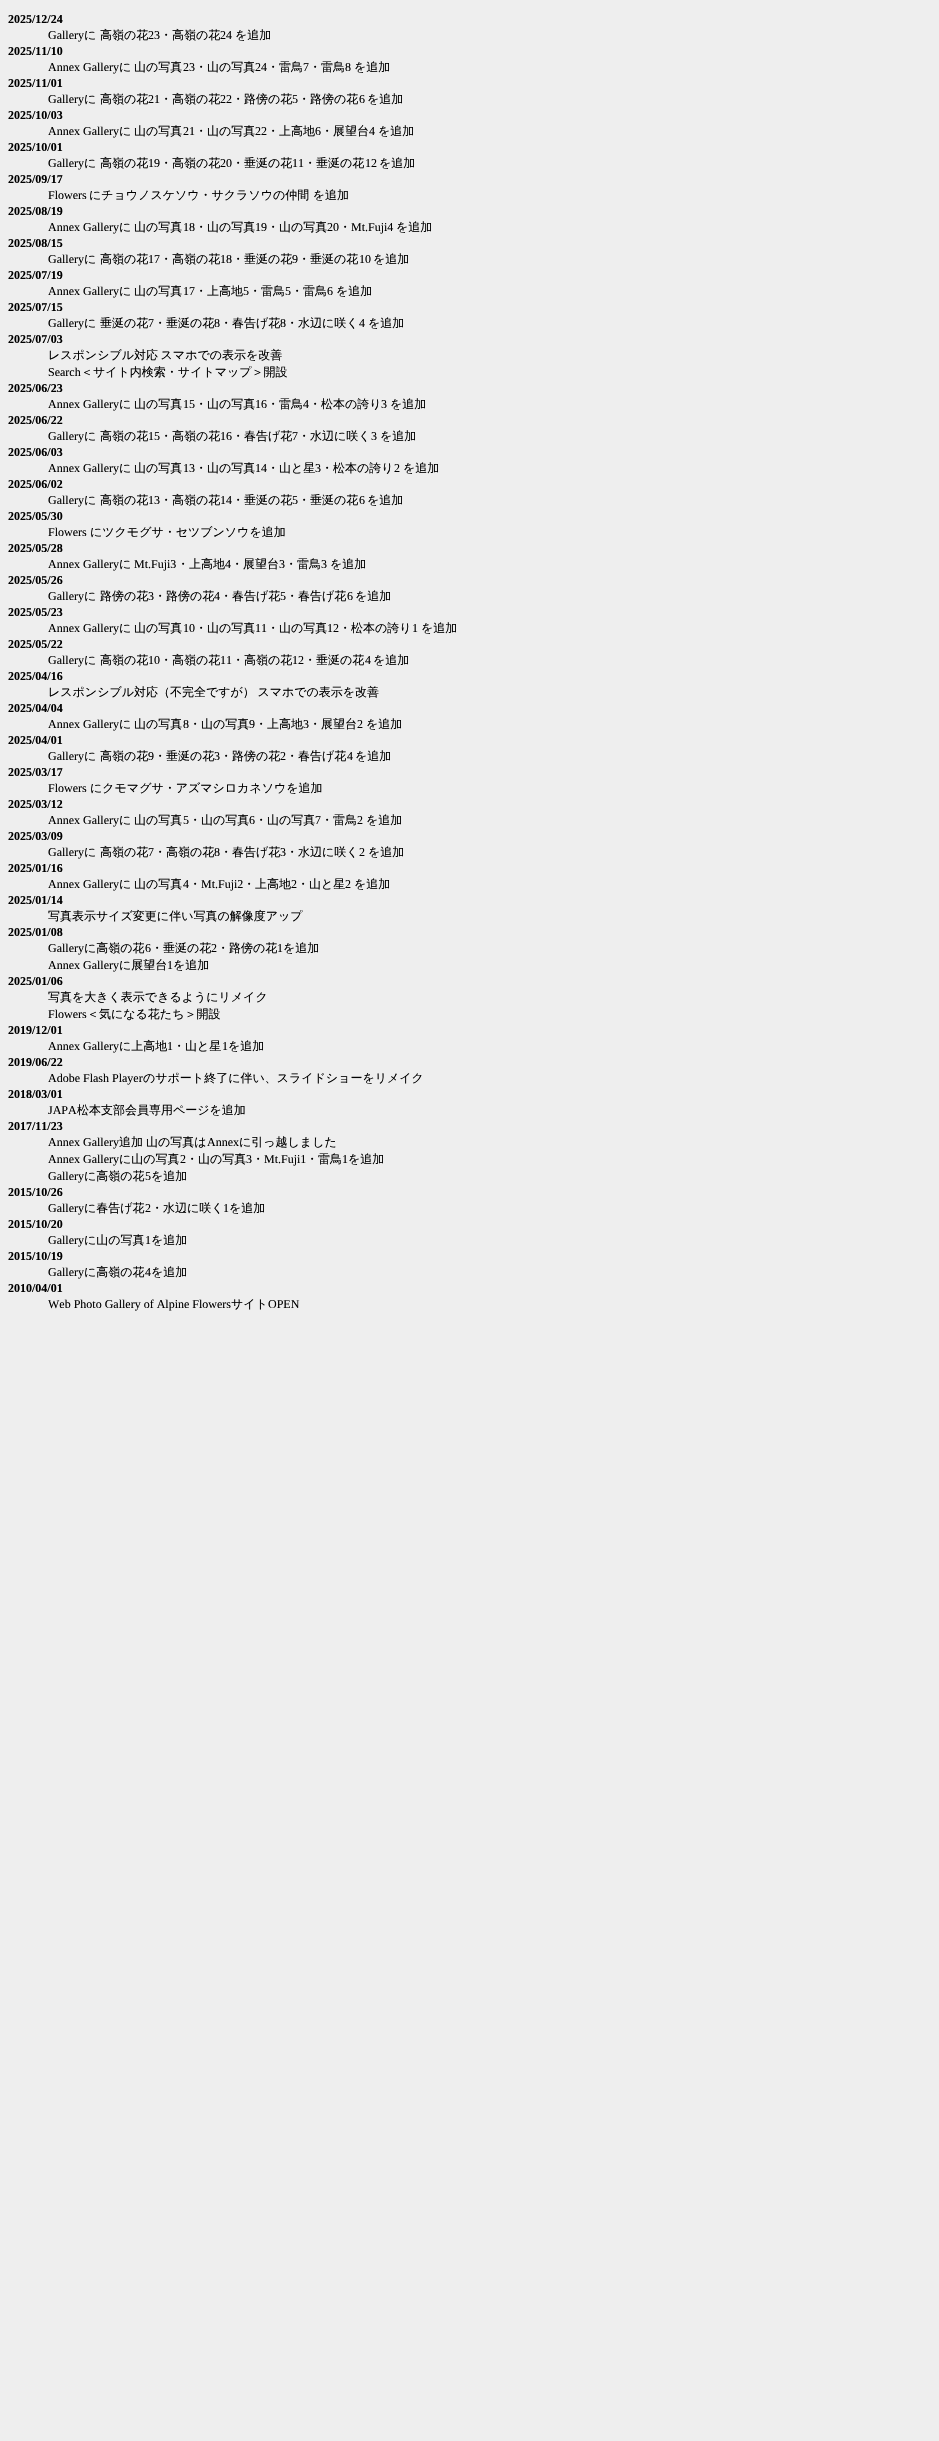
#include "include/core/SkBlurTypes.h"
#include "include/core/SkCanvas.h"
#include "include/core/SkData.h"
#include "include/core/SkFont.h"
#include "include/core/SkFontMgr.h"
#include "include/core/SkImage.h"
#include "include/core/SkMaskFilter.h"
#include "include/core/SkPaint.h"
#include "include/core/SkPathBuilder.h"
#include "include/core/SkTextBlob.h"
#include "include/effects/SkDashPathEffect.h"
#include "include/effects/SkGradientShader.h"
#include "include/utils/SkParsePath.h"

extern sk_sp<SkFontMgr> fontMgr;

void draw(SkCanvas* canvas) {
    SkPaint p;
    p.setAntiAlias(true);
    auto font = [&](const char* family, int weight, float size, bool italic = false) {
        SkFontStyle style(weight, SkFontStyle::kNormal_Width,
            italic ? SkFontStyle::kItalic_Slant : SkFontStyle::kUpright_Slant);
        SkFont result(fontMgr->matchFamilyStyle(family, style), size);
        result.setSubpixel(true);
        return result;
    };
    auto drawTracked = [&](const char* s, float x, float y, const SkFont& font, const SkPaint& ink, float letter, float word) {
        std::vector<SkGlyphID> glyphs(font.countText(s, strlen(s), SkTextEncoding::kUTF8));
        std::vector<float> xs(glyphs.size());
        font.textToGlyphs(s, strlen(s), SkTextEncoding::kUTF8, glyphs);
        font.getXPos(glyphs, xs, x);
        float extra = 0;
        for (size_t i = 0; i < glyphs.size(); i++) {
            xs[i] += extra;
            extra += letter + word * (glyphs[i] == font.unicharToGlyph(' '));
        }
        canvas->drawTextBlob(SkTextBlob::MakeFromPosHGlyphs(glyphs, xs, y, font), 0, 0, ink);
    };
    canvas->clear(0xFFEEEEEE);
    auto font1 = font("Liberation Serif", 700, 12);
    p.setColor(0xFF000000);
    canvas->drawString("2025/12/24", 8, 23, font1, p);
    auto font2 = font("Liberation Serif", 400, 12);
    canvas->drawString("Gallery", 48, 39, font2, p);
    auto font3 = font("WenQuanYi Zen Hei", 500, 12);
    canvas->drawString("に 高嶺の花", 84, 39, font3, p);
    canvas->drawString("23", 148, 39, font2, p);
    canvas->drawString("・高嶺の花", 160, 39, font3, p);
    canvas->drawString("24", 220, 39, font2, p);
    canvas->drawString("を追加", 235, 39, font3, p);
    canvas->drawString("2025/11/10", 8, 55, font1, p);
    canvas->drawString("Annex Gallery", 48, 71, font2, p);
    canvas->drawString("に", 119, 71, font3, p);
    canvas->drawString("山の写真", 134, 71, font3, p);
    canvas->drawString("23", 183, 71, font2, p);
    canvas->drawString("・山の写真", 195, 71, font3, p);
    canvas->drawString("24", 255, 71, font2, p);
    canvas->drawString("・雷鳥", 267, 71, font3, p);
    canvas->drawString("7", 303, 71, font2, p);
    canvas->drawString("・雷鳥", 309, 71, font3, p);
    canvas->drawString("8", 345, 71, font2, p);
    canvas->drawString("を追加", 354, 71, font3, p);
    canvas->drawString("2025/11/01", 8, 87, font1, p);
    canvas->drawString("Gallery", 48, 103, font2, p);
    canvas->drawString("に 高嶺の花", 84, 103, font3, p);
    canvas->drawString("21", 148, 103, font2, p);
    canvas->drawString("・高嶺の花", 160, 103, font3, p);
    canvas->drawString("22", 220, 103, font2, p);
    canvas->drawString("・路傍の花", 232, 103, font3, p);
    canvas->drawString("5", 292, 103, font2, p);
    canvas->drawString("・路傍の花", 298, 103, font3, p);
    canvas->drawString("6", 359, 103, font2, p);
    canvas->drawString("を追加", 367, 103, font3, p);
    canvas->drawString("2025/10/03", 8, 119, font1, p);
    canvas->drawString("Annex Gallery", 48, 135, font2, p);
    canvas->drawString("に", 119, 135, font3, p);
    canvas->drawString("山の写真", 134, 135, font3, p);
    canvas->drawString("21", 183, 135, font2, p);
    canvas->drawString("・山の写真", 195, 135, font3, p);
    canvas->drawString("22", 255, 135, font2, p);
    canvas->drawString("・上高地", 267, 135, font3, p);
    canvas->drawString("6", 315, 135, font2, p);
    canvas->drawString("・展望台", 321, 135, font3, p);
    canvas->drawString("4", 369, 135, font2, p);
    canvas->drawString("を追加", 378, 135, font3, p);
    canvas->drawString("2025/10/01", 8, 151, font1, p);
    canvas->drawString("Gallery", 48, 167, font2, p);
    canvas->drawString("に 高嶺の花", 84, 167, font3, p);
    canvas->drawString("19", 148, 167, font2, p);
    canvas->drawString("・高嶺の花", 160, 167, font3, p);
    canvas->drawString("20", 220, 167, font2, p);
    canvas->drawString("・垂涎の花", 232, 167, font3, p);
    canvas->drawString("11", 292, 167, font2, p);
    canvas->drawString("・垂涎の花", 304, 167, font3, p);
    canvas->drawString("12", 365, 167, font2, p);
    canvas->drawString("を追加", 379, 167, font3, p);
    canvas->drawString("2025/09/17", 8, 183, font1, p);
    canvas->drawString("Flowers", 48, 199, font2, p);
    canvas->drawString("にチョウノスケソウ・サクラソウの仲間 を追加", 89, 199, font3, p);
    canvas->drawString("2025/08/19", 8, 215, font1, p);
    canvas->drawString("Annex Gallery", 48, 231, font2, p);
    canvas->drawString("に", 119, 231, font3, p);
    canvas->drawString("山の写真", 134, 231, font3, p);
    canvas->drawString("18", 183, 231, font2, p);
    canvas->drawString("・山の写真", 195, 231, font3, p);
    canvas->drawString("19", 255, 231, font2, p);
    canvas->drawString("・山の写真", 267, 231, font3, p);
    canvas->drawString("20", 327, 231, font2, p);
    canvas->drawString("・", 339, 231, font3, p);
    canvas->drawString("Mt.Fuji4", 351, 231, font2, p);
    canvas->drawString("を追加", 396, 231, font3, p);
    canvas->drawString("2025/08/15", 8, 247, font1, p);
    canvas->drawString("Gallery", 48, 263, font2, p);
    canvas->drawString("に 高嶺の花", 84, 263, font3, p);
    canvas->drawString("17", 148, 263, font2, p);
    canvas->drawString("・高嶺の花", 160, 263, font3, p);
    canvas->drawString("18", 220, 263, font2, p);
    canvas->drawString("・垂涎の花", 232, 263, font3, p);
    canvas->drawString("9", 292, 263, font2, p);
    canvas->drawString("・垂涎の花", 298, 263, font3, p);
    canvas->drawString("10", 359, 263, font2, p);
    canvas->drawString("を追加", 373, 263, font3, p);
    canvas->drawString("2025/07/19", 8, 279, font1, p);
    canvas->drawString("Annex Gallery", 48, 295, font2, p);
    canvas->drawString("に", 119, 295, font3, p);
    canvas->drawString("山の写真", 134, 295, font3, p);
    canvas->drawString("17", 183, 295, font2, p);
    canvas->drawString("・上高地", 195, 295, font3, p);
    canvas->drawString("5", 243, 295, font2, p);
    canvas->drawString("・雷鳥", 249, 295, font3, p);
    canvas->drawString("5", 285, 295, font2, p);
    canvas->drawString("・雷鳥", 291, 295, font3, p);
    canvas->drawString("6", 327, 295, font2, p);
    canvas->drawString("を追加", 336, 295, font3, p);
    canvas->drawString("2025/07/15", 8, 311, font1, p);
    canvas->drawString("Gallery", 48, 327, font2, p);
    canvas->drawString("に 垂涎の花", 84, 327, font3, p);
    canvas->drawString("7", 148, 327, font2, p);
    canvas->drawString("・垂涎の花", 154, 327, font3, p);
    canvas->drawString("8", 214, 327, font2, p);
    canvas->drawString("・春告げ花", 220, 327, font3, p);
    canvas->drawString("8", 280, 327, font2, p);
    canvas->drawString("・水辺に咲く", 286, 327, font3, p);
    canvas->drawString("4", 359, 327, font2, p);
    canvas->drawString("を追加", 368, 327, font3, p);
    canvas->drawString("2025/07/03", 8, 343, font1, p);
    drawTracked("レスポンシブル対応 スマホでの表示を改善", 48, 359, font3, p, 0, -1);
    canvas->drawString("Search", 48, 376, font2, p);
    canvas->drawString("＜サイト内検索・サイトマップ＞開設", 81, 376, font3, p);
    canvas->drawString("2025/06/23", 8, 392, font1, p);
    canvas->drawString("Annex Gallery", 48, 408, font2, p);
    canvas->drawString("に", 119, 408, font3, p);
    canvas->drawString("山の写真", 134, 408, font3, p);
    canvas->drawString("15", 183, 408, font2, p);
    canvas->drawString("・山の写真", 195, 408, font3, p);
    canvas->drawString("16", 255, 408, font2, p);
    canvas->drawString("・雷鳥", 267, 408, font3, p);
    canvas->drawString("4", 303, 408, font2, p);
    canvas->drawString("・松本の誇り", 309, 408, font3, p);
    canvas->drawString("3", 381, 408, font2, p);
    canvas->drawString("を追加", 390, 408, font3, p);
    canvas->drawString("2025/06/22", 8, 424, font1, p);
    canvas->drawString("Gallery", 48, 440, font2, p);
    canvas->drawString("に 高嶺の花", 84, 440, font3, p);
    canvas->drawString("15", 148, 440, font2, p);
    canvas->drawString("・高嶺の花", 160, 440, font3, p);
    canvas->drawString("16", 220, 440, font2, p);
    canvas->drawString("・春告げ花", 232, 440, font3, p);
    canvas->drawString("7", 292, 440, font2, p);
    canvas->drawString("・水辺に咲く", 298, 440, font3, p);
    canvas->drawString("3", 371, 440, font2, p);
    canvas->drawString("を追加", 380, 440, font3, p);
    canvas->drawString("2025/06/03", 8, 456, font1, p);
    canvas->drawString("Annex Gallery", 48, 472, font2, p);
    canvas->drawString("に", 119, 472, font3, p);
    canvas->drawString("山の写真", 134, 472, font3, p);
    canvas->drawString("13", 183, 472, font2, p);
    canvas->drawString("・山の写真", 195, 472, font3, p);
    canvas->drawString("14", 255, 472, font2, p);
    canvas->drawString("・山と星", 267, 472, font3, p);
    canvas->drawString("3", 315, 472, font2, p);
    canvas->drawString("・松本の誇り", 321, 472, font3, p);
    canvas->drawString("2", 394, 472, font2, p);
    canvas->drawString("を追加", 403, 472, font3, p);
    canvas->drawString("2025/06/02", 8, 488, font1, p);
    canvas->drawString("Gallery", 48, 504, font2, p);
    canvas->drawString("に 高嶺の花", 84, 504, font3, p);
    canvas->drawString("13", 148, 504, font2, p);
    canvas->drawString("・高嶺の花", 160, 504, font3, p);
    canvas->drawString("14", 220, 504, font2, p);
    canvas->drawString("・垂涎の花", 232, 504, font3, p);
    canvas->drawString("5", 292, 504, font2, p);
    canvas->drawString("・垂涎の花", 298, 504, font3, p);
    canvas->drawString("6", 359, 504, font2, p);
    canvas->drawString("を追加", 367, 504, font3, p);
    canvas->drawString("2025/05/30", 8, 520, font1, p);
    canvas->drawString("Flowers", 48, 536, font2, p);
    canvas->drawString("にツクモグサ・セツブンソウを追加", 90, 536, font3, p);
    canvas->drawString("2025/05/28", 8, 552, font1, p);
    canvas->drawString("Annex Gallery", 48, 568, font2, p);
    canvas->drawString("に", 119, 568, font3, p);
    canvas->drawString("Mt.Fuji3", 134, 568, font2, p);
    canvas->drawString("・上高地", 177, 568, font3, p);
    canvas->drawString("4", 225, 568, font2, p);
    canvas->drawString("・展望台", 231, 568, font3, p);
    canvas->drawString("3", 279, 568, font2, p);
    canvas->drawString("・雷鳥", 285, 568, font3, p);
    canvas->drawString("3", 321, 568, font2, p);
    canvas->drawString("を追加", 330, 568, font3, p);
    canvas->drawString("2025/05/26", 8, 584, font1, p);
    canvas->drawString("Gallery", 48, 600, font2, p);
    canvas->drawString("に 路傍の花", 84, 600, font3, p);
    canvas->drawString("3", 148, 600, font2, p);
    canvas->drawString("・路傍の花", 154, 600, font3, p);
    canvas->drawString("4", 214, 600, font2, p);
    canvas->drawString("・春告げ花", 220, 600, font3, p);
    canvas->drawString("5", 280, 600, font2, p);
    canvas->drawString("・春告げ花", 286, 600, font3, p);
    canvas->drawString("6", 347, 600, font2, p);
    canvas->drawString("を追加", 355, 600, font3, p);
    canvas->drawString("2025/05/23", 8, 616, font1, p);
    canvas->drawString("Annex Gallery", 48, 632, font2, p);
    canvas->drawString("に", 119, 632, font3, p);
    canvas->drawString("山の写真", 134, 632, font3, p);
    canvas->drawString("10", 183, 632, font2, p);
    canvas->drawString("・山の写真", 195, 632, font3, p);
    canvas->drawString("11", 255, 632, font2, p);
    canvas->drawString("・山の写真", 267, 632, font3, p);
    canvas->drawString("12", 327, 632, font2, p);
    canvas->drawString("・松本の誇り", 339, 632, font3, p);
    canvas->drawString("1", 412, 632, font2, p);
    canvas->drawString("を追加", 421, 632, font3, p);
    canvas->drawString("2025/05/22", 8, 648, font1, p);
    canvas->drawString("Gallery", 48, 664, font2, p);
    canvas->drawString("に 高嶺の花", 84, 664, font3, p);
    canvas->drawString("10", 148, 664, font2, p);
    canvas->drawString("・高嶺の花", 160, 664, font3, p);
    canvas->drawString("11", 220, 664, font2, p);
    canvas->drawString("・高嶺の花", 232, 664, font3, p);
    canvas->drawString("12", 292, 664, font2, p);
    canvas->drawString("・垂涎の花", 304, 664, font3, p);
    canvas->drawString("4", 365, 664, font2, p);
    canvas->drawString("を追加", 373, 664, font3, p);
    canvas->drawString("2025/04/16", 8, 680, font1, p);
    drawTracked("レスポンシブル対応（不完全ですが） スマホでの表示を改善", 48, 696, font3, p, 0, -1);
    canvas->drawString("2025/04/04", 8, 712, font1, p);
    canvas->drawString("Annex Gallery", 48, 728, font2, p);
    canvas->drawString("に", 119, 728, font3, p);
    canvas->drawString("山の写真", 134, 728, font3, p);
    canvas->drawString("8", 183, 728, font2, p);
    canvas->drawString("・山の写真", 189, 728, font3, p);
    canvas->drawString("9", 249, 728, font2, p);
    canvas->drawString("・上高地", 255, 728, font3, p);
    canvas->drawString("3", 303, 728, font2, p);
    canvas->drawString("・展望台", 309, 728, font3, p);
    canvas->drawString("2", 357, 728, font2, p);
    canvas->drawString("を追加", 366, 728, font3, p);
    canvas->drawString("2025/04/01", 8, 744, font1, p);
    canvas->drawString("Gallery", 48, 760, font2, p);
    canvas->drawString("に 高嶺の花", 84, 760, font3, p);
    canvas->drawString("9", 148, 760, font2, p);
    canvas->drawString("・垂涎の花", 154, 760, font3, p);
    canvas->drawString("3", 214, 760, font2, p);
    canvas->drawString("・路傍の花", 220, 760, font3, p);
    canvas->drawString("2", 280, 760, font2, p);
    canvas->drawString("・春告げ花", 286, 760, font3, p);
    canvas->drawString("4", 347, 760, font2, p);
    canvas->drawString("を追加", 355, 760, font3, p);
    canvas->drawString("2025/03/17", 8, 776, font1, p);
    canvas->drawString("Flowers", 48, 792, font2, p);
    canvas->drawString("にクモマグサ・アズマシロカネソウを追加", 90, 792, font3, p);
    canvas->drawString("2025/03/12", 8, 808, font1, p);
    canvas->drawString("Annex Gallery", 48, 824, font2, p);
    canvas->drawString("に", 119, 824, font3, p);
    canvas->drawString("山の写真", 134, 824, font3, p);
    canvas->drawString("5", 183, 824, font2, p);
    canvas->drawString("・山の写真", 189, 824, font3, p);
    canvas->drawString("6", 249, 824, font2, p);
    canvas->drawString("・山の写真", 255, 824, font3, p);
    canvas->drawString("7", 315, 824, font2, p);
    canvas->drawString("・雷鳥", 321, 824, font3, p);
    canvas->drawString("2", 357, 824, font2, p);
    canvas->drawString("を追加", 366, 824, font3, p);
    canvas->drawString("2025/03/09", 8, 840, font1, p);
    canvas->drawString("Gallery", 48, 856, font2, p);
    canvas->drawString("に 高嶺の花", 84, 856, font3, p);
    canvas->drawString("7", 148, 856, font2, p);
    canvas->drawString("・高嶺の花", 154, 856, font3, p);
    canvas->drawString("8", 214, 856, font2, p);
    canvas->drawString("・春告げ花", 220, 856, font3, p);
    canvas->drawString("3", 280, 856, font2, p);
    canvas->drawString("・水辺に咲く", 286, 856, font3, p);
    canvas->drawString("2", 359, 856, font2, p);
    canvas->drawString("を追加", 368, 856, font3, p);
    canvas->drawString("2025/01/16", 8, 872, font1, p);
    canvas->drawString("Annex Gallery", 48, 888, font2, p);
    canvas->drawString("に", 119, 888, font3, p);
    canvas->drawString("山の写真", 134, 888, font3, p);
    canvas->drawString("4", 183, 888, font2, p);
    canvas->drawString("・", 189, 888, font3, p);
    canvas->drawString("Mt.Fuji2", 201, 888, font2, p);
    canvas->drawString("・上高地", 243, 888, font3, p);
    canvas->drawString("2", 291, 888, font2, p);
    canvas->drawString("・山と星", 297, 888, font3, p);
    canvas->drawString("2", 345, 888, font2, p);
    canvas->drawString("を追加", 354, 888, font3, p);
    canvas->drawString("2025/01/14", 8, 904, font1, p);
    canvas->drawString("写真表示サイズ変更に伴い写真の解像度アップ", 48, 920, font3, p);
    canvas->drawString("2025/01/08", 8, 936, font1, p);
    canvas->drawString("Gallery", 48, 952, font2, p);
    canvas->drawString("に高嶺の花", 84, 952, font3, p);
    canvas->drawString("6", 145, 952, font2, p);
    canvas->drawString("・垂涎の花", 151, 952, font3, p);
    canvas->drawString("2", 211, 952, font2, p);
    canvas->drawString("・路傍の花", 217, 952, font3, p);
    canvas->drawString("1", 277, 952, font2, p);
    canvas->drawString("を追加", 283, 952, font3, p);
    canvas->drawString("Annex Gallery", 48, 969, font2, p);
    canvas->drawString("に展望台", 119, 969, font3, p);
    canvas->drawString("1", 167, 969, font2, p);
    canvas->drawString("を追加", 173, 969, font3, p);
    canvas->drawString("2025/01/06", 8, 985, font1, p);
    canvas->drawString("写真を大きく表示できるようにリメイク", 48, 1001, font3, p);
    canvas->drawString("Flowers", 48, 1018, font2, p);
    canvas->drawString("＜気になる花たち＞開設", 87, 1018, font3, p);
    canvas->drawString("2019/12/01", 8, 1034, font1, p);
    canvas->drawString("Annex Gallery", 48, 1050, font2, p);
    canvas->drawString("に上高地", 119, 1050, font3, p);
    canvas->drawString("1", 167, 1050, font2, p);
    canvas->drawString("・山と星", 173, 1050, font3, p);
    canvas->drawString("1", 222, 1050, font2, p);
    canvas->drawString("を追加", 228, 1050, font3, p);
    canvas->drawString("2019/06/22", 8, 1066, font1, p);
    canvas->drawString("Adobe Flash Player", 48, 1082, font2, p);
    canvas->drawString("のサポート終了に伴い、スライドショーをリメイク", 143, 1082, font3, p);
    canvas->drawString("2018/03/01", 8, 1098, font1, p);
    canvas->drawString("JAPA", 48, 1114, font2, p);
    canvas->drawString("松本支部会員専用ページを追加", 77, 1114, font3, p);
    canvas->drawString("2017/11/23", 8, 1130, font1, p);
    canvas->drawString("Annex Gallery", 48, 1146, font2, p);
    canvas->drawString("追加", 119, 1146, font3, p);
    canvas->drawString("山の写真は", 146, 1146, font3, p);
    canvas->drawString("Annex", 207, 1146, font2, p);
    canvas->drawString("に引っ越しました", 239, 1146, font3, p);
    canvas->drawString("Annex Gallery", 48, 1163, font2, p);
    canvas->drawString("に山の写真", 119, 1163, font3, p);
    canvas->drawString("2", 180, 1163, font2, p);
    canvas->drawString("・山の写真", 186, 1163, font3, p);
    canvas->drawString("3", 246, 1163, font2, p);
    canvas->drawString("・", 252, 1163, font3, p);
    canvas->drawString("Mt.Fuji1", 264, 1163, font2, p);
    canvas->drawString("・雷鳥", 306, 1163, font3, p);
    canvas->drawString("1", 342, 1163, font2, p);
    canvas->drawString("を追加", 348, 1163, font3, p);
    canvas->drawString("Gallery", 48, 1180, font2, p);
    canvas->drawString("に高嶺の花", 84, 1180, font3, p);
    canvas->drawString("5", 145, 1180, font2, p);
    canvas->drawString("を追加", 151, 1180, font3, p);
    canvas->drawString("2015/10/26", 8, 1196, font1, p);
    canvas->drawString("Gallery", 48, 1212, font2, p);
    canvas->drawString("に春告げ花", 84, 1212, font3, p);
    canvas->drawString("2", 145, 1212, font2, p);
    canvas->drawString("・水辺に咲く", 151, 1212, font3, p);
    canvas->drawString("1", 223, 1212, font2, p);
    canvas->drawString("を追加", 229, 1212, font3, p);
    canvas->drawString("2015/10/20", 8, 1228, font1, p);
    canvas->drawString("Gallery", 48, 1244, font2, p);
    canvas->drawString("に山の写真", 84, 1244, font3, p);
    canvas->drawString("1", 145, 1244, font2, p);
    canvas->drawString("を追加", 151, 1244, font3, p);
    canvas->drawString("2015/10/19", 8, 1260, font1, p);
    canvas->drawString("Gallery", 48, 1276, font2, p);
    canvas->drawString("に高嶺の花", 84, 1276, font3, p);
    canvas->drawString("4", 145, 1276, font2, p);
    canvas->drawString("を追加", 151, 1276, font3, p);
    canvas->drawString("2010/04/01", 8, 1292, font1, p);
    canvas->drawString("Web Photo Gallery of Alpine Flowers", 48, 1308, font2, p);
    canvas->drawString("サイト", 231, 1308, font3, p);
    canvas->drawString("OPEN", 268, 1308, font2, p);
}
